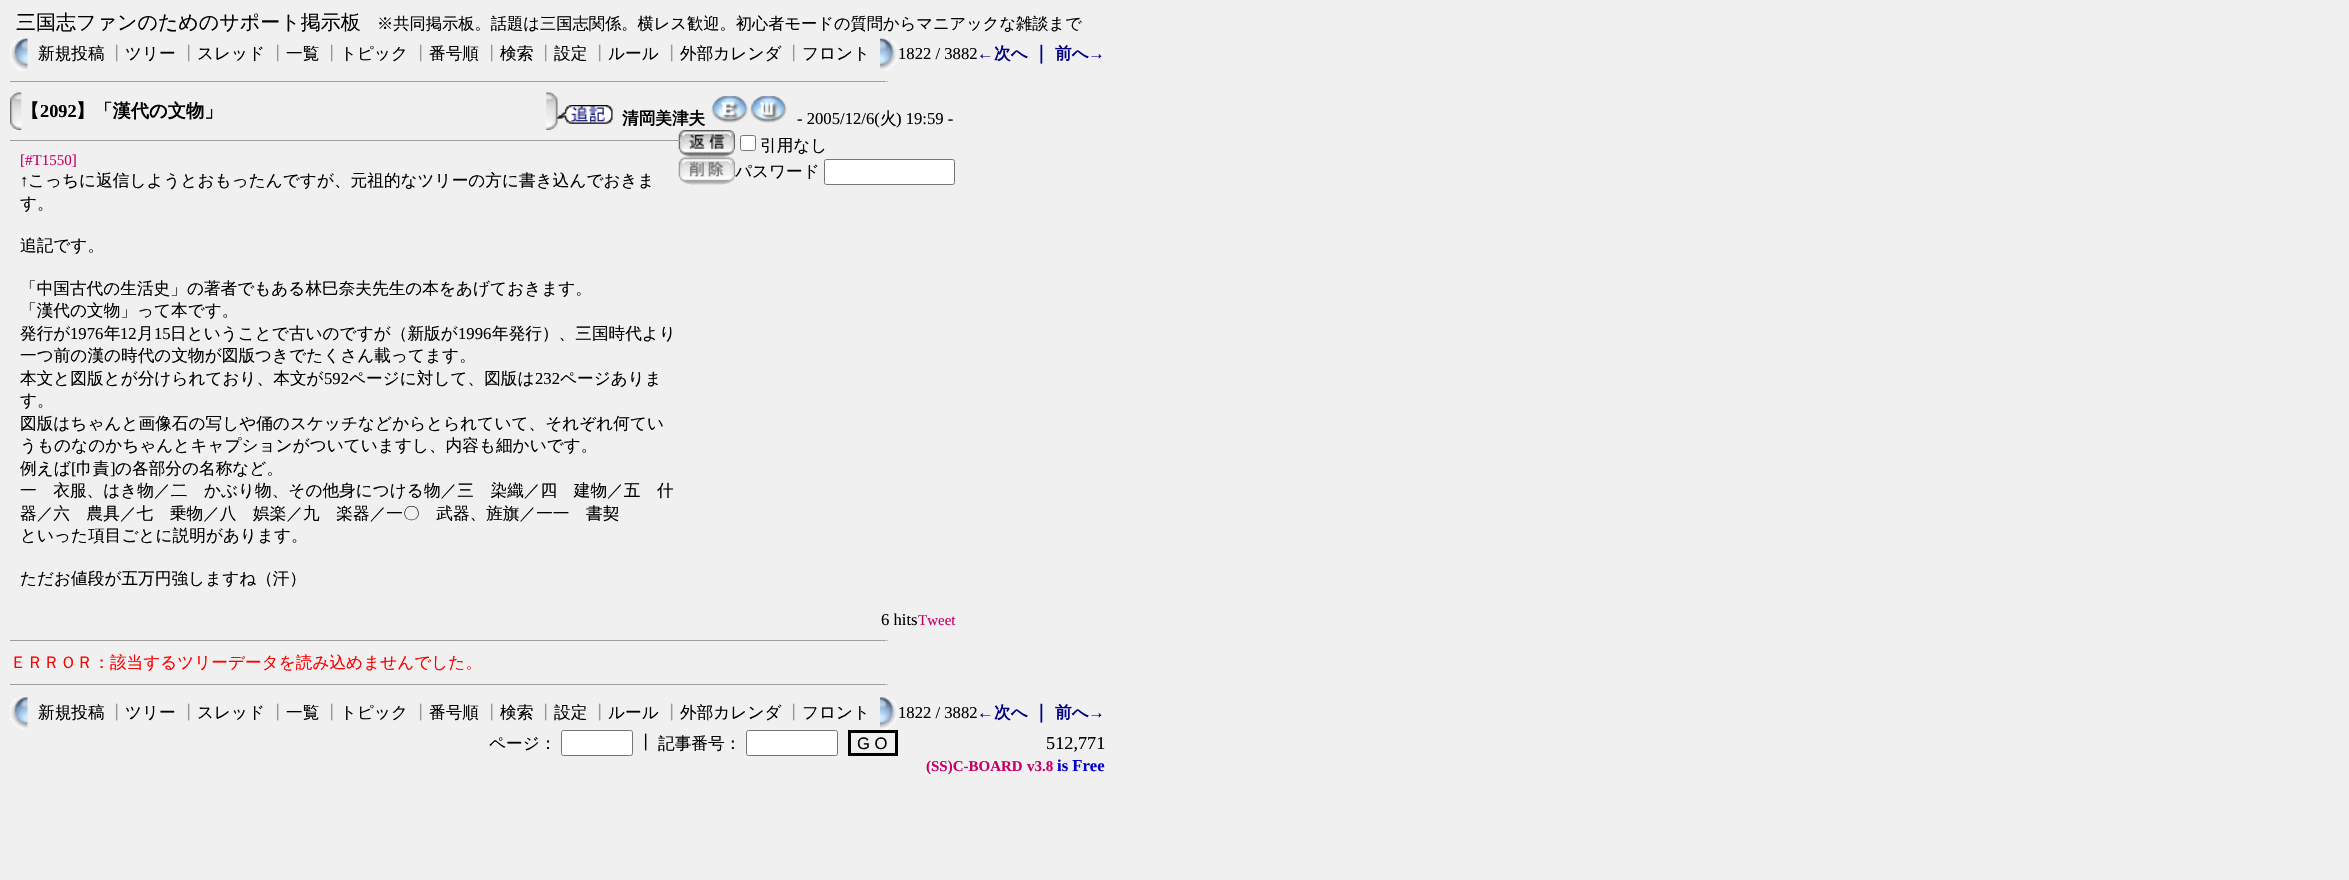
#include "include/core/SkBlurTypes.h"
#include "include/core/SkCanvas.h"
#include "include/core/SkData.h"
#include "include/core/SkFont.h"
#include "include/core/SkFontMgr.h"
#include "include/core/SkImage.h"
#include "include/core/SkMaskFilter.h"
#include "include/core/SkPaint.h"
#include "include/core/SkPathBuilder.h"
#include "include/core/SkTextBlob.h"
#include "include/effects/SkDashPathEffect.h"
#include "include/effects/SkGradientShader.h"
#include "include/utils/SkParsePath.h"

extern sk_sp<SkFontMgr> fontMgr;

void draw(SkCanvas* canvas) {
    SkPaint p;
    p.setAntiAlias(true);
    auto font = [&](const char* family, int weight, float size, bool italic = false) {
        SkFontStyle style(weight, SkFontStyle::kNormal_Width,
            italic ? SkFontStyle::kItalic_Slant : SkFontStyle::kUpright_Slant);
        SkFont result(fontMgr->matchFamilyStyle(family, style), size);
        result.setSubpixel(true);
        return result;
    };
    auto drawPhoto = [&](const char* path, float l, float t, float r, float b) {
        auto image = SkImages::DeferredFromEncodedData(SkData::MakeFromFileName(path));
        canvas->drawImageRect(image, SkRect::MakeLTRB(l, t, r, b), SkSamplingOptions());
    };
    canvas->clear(0xFFF0F0F0);
    auto font1 = font("WenQuanYi Zen Hei", 500, 20);
    p.setColor(0xFF000000);
    canvas->drawString("三国志ファンのためのサポート掲示板", 16, 29, font1, p);
    auto font2 = font("WenQuanYi Zen Hei", 500, 16.25f);
    canvas->drawString("※共同掲示板。話題は三国志関係。横レス歓迎。初心者モードの質問からマニアックな雑談まで", 377, 29, font2, p);
    drawPhoto("media/1.png", 10, 37, 28, 71);
    auto font3 = font("WenQuanYi Zen Hei", 500, 16.65f);
    canvas->drawString("新規投稿", 38, 59, font3, p);
    p.setColor(0xFF999999);
    canvas->drawString("┃", 108, 59, font3, p);
    p.setColor(0xFF000000);
    canvas->drawString("ツリー", 125, 59, font3, p);
    p.setColor(0xFF999999);
    canvas->drawString("┃", 180, 59, font3, p);
    p.setColor(0xFF000000);
    canvas->drawString("スレッド", 197, 59, font3, p);
    p.setColor(0xFF999999);
    canvas->drawString("┃", 269, 59, font3, p);
    p.setColor(0xFF000000);
    canvas->drawString("一覧", 286, 59, font3, p);
    p.setColor(0xFF999999);
    canvas->drawString("┃", 323, 59, font3, p);
    p.setColor(0xFF000000);
    canvas->drawString("トピック", 340, 59, font3, p);
    p.setColor(0xFF999999);
    canvas->drawString("┃", 412, 59, font3, p);
    p.setColor(0xFF000000);
    canvas->drawString("番号順", 429, 59, font3, p);
    p.setColor(0xFF999999);
    canvas->drawString("┃", 483, 59, font3, p);
    p.setColor(0xFF000000);
    canvas->drawString("検索", 500, 59, font3, p);
    p.setColor(0xFF999999);
    canvas->drawString("┃", 537, 59, font3, p);
    p.setColor(0xFF000000);
    canvas->drawString("設定", 554, 59, font3, p);
    p.setColor(0xFF999999);
    canvas->drawString("┃", 591, 59, font3, p);
    p.setColor(0xFF000000);
    canvas->drawString("ルール", 608, 59, font3, p);
    p.setColor(0xFF999999);
    canvas->drawString("┃", 663, 59, font3, p);
    p.setColor(0xFF000000);
    canvas->drawString("外部カレンダ", 680, 59, font3, p);
    p.setColor(0xFF999999);
    canvas->drawString("┃", 785, 59, font3, p);
    p.setColor(0xFF000000);
    canvas->drawString("フロント", 802, 59, font3, p);
    drawPhoto("media/2.png", 880, 37, 898, 71);
    auto font4 = font("Liberation Serif", 400, 16.65f);
    canvas->drawString("1822 / 3882", 898, 59, font4, p);
    auto font5 = font("Liberation Serif", 700, 16.65f);
    p.setColor(0xFF000080);
    canvas->drawString("←", 977, 59, font5, p);
    auto font6 = font("WenQuanYi Zen Hei", 700, 16.65f);
    canvas->drawString("次へ", 994, 59, font6, p);
    auto font7 = font("WenQuanYi Zen Hei", 700, 18.25f);
    canvas->drawString("｜", 1032, 59, font7, p);
    canvas->drawString("前へ", 1055, 59, font6, p);
    canvas->drawString("→", 1088, 59, font5, p);
    p.setColor(0xFF9F9F9F);
    canvas->drawRect(SkRect::MakeLTRB(10, 81, 888, 82), p);
    p.setColor(0xFFEEEEEE);
    canvas->drawRect(SkRect::MakeLTRB(886, 81, 887, 82), p);
    drawPhoto("media/3.png", 10, 92, 22, 130);
    p.setColor(0xFF000000);
    canvas->drawString("【", 21, 117, font7, p);
    auto font8 = font("Liberation Serif", 700, 18.25f);
    canvas->drawString("2092", 40, 117, font8, p);
    canvas->drawString("】「漢代の文物」", 76, 117, font7, p);
    drawPhoto("media/4.png", 546, 92, 558, 130);
    drawPhoto("media/5.png", 557, 105, 613, 124);
    canvas->drawString("清岡美津夫", 622, 124, font6, p);
    drawPhoto("media/6.png", 711, 96, 748, 123);
    drawPhoto("media/7.png", 750, 96, 787, 123);
    canvas->drawString("- 2005/12/6(", 797, 124, font4, p);
    canvas->drawString("火", 880, 124, font3, p);
    canvas->drawString(") 19:59 -", 896, 124, font4, p);
    auto font9 = font("Liberation Serif", 400, 15);
    p.setColor(0xFFC50067);
    canvas->drawString("[#T1550]", 20, 165, font9, p);
    p.setColor(0xFF000000);
    canvas->drawString("↑", 20, 186, font4, p);
    {
        const struct { const char* s; float x, y; } items[] = {
            {"こっちに返信しようとおもったんですが、元祖的なツリーの方に書き込んでおきま", 28, 186},
            {"す。", 20, 209},
            {"追記です。", 20, 251},
            {"「中国古代の生活史」の著者でもある林巳奈夫先生の本をあげておきます。", 20, 294},
            {"「漢代の文物」って本です。", 20, 316},
            {"発行が", 20, 339},
        };
        for (auto [s, x, y] : items) {
            canvas->drawString(s, x, y, font3, p);
        }
    }
    canvas->drawString("1976", 70, 339, font4, p);
    canvas->drawString("年", 104, 339, font3, p);
    canvas->drawString("12", 120, 339, font4, p);
    canvas->drawString("月", 137, 339, font3, p);
    canvas->drawString("15", 154, 339, font4, p);
    canvas->drawString("日ということで古いのですが（新版が", 170, 339, font3, p);
    canvas->drawString("1996", 458, 339, font4, p);
    {
        const struct { const char* s; float x, y; } items[] = {
            {"年発行）、三国時代より", 492, 339},
            {"一つ前の漢の時代の文物が図版つきでたくさん載ってます。", 20, 361},
            {"本文と図版とが分けられており、本文が", 20, 384},
        };
        for (auto [s, x, y] : items) {
            canvas->drawString(s, x, y, font3, p);
        }
    }
    canvas->drawString("592", 324, 384, font4, p);
    canvas->drawString("ページに対して、図版は", 349, 384, font3, p);
    canvas->drawString("232", 535, 384, font4, p);
    {
        const struct { const char* s; float x, y; } items[] = {
            {"ページありま", 560, 384},
            {"す。", 20, 406},
            {"図版はちゃんと画像石の写しや俑のスケッチなどからとられていて、それぞれ何てい", 20, 429},
            {"うものなのかちゃんとキャプションがついていますし、内容も細かいです。", 20, 451},
            {"例えば", 20, 474},
        };
        for (auto [s, x, y] : items) {
            canvas->drawString(s, x, y, font3, p);
        }
    }
    canvas->drawString("[", 71, 474, font4, p);
    canvas->drawString("巾責", 76, 474, font3, p);
    canvas->drawString("]", 110, 474, font4, p);
    {
        const struct { const char* s; float x, y; } items[] = {
            {"の各部分の名称など。", 115, 474},
            {"一　衣服、はき物／二　かぶり物、その他身につける物／三　染織／四　建物／五　什", 20, 496},
            {"器／六　農具／七　乗物／八　娯楽／九　楽器／一〇　武器、旌旗／一一　書契", 20, 519},
            {"といった項目ごとに説明があります。", 20, 541},
            {"ただお値段が五万円強しますね（汗）", 20, 584},
        };
        for (auto [s, x, y] : items) {
            canvas->drawString(s, x, y, font3, p);
        }
    }
    drawPhoto("media/8.png", 678, 130, 735, 158);
    p.setColor(0xFF9F9F9F);
    canvas->drawRect(SkRect::MakeLTRB(10, 140, 681, 141), p);
    p.setColor(0xFFEEEEEE);
    canvas->drawRect(SkRect::MakeLTRB(680, 140, 681, 141), p);
    p.setColor(0xFFFFFFFF);
    canvas->drawRoundRect(SkRect::MakeLTRB(740.5f, 135.5f, 755.5f, 150.5f), 2, 2, p);
    p.setStyle(SkPaint::kStroke_Style);
    p.setStrokeWidth(1);
    p.setColor(0xFF767676);
    canvas->drawRoundRect(SkRect::MakeLTRB(740.5f, 135.5f, 755.5f, 150.5f), 2, 2, p);
    p.setStyle(SkPaint::kFill_Style);
    p.setColor(0xFF000000);
    canvas->drawString("引用なし", 760, 151, font3, p);
    drawPhoto("media/9.png", 678, 157, 735, 185);
    canvas->drawString("パスワード", 735, 177, font3, p);
    p.setColor(0xFFFFFFFF);
    canvas->drawRoundRect(SkRect::MakeLTRB(824.5f, 159.5f, 954.5f, 184.5f), 2, 2, p);
    p.setStyle(SkPaint::kStroke_Style);
    p.setColor(0xFF767676);
    canvas->drawRoundRect(SkRect::MakeLTRB(824.5f, 159.5f, 954.5f, 184.5f), 2, 2, p);
    p.setStyle(SkPaint::kFill_Style);
    p.setColor(0xFF000000);
    canvas->drawString("6 hits", 881, 625, font4, p);
    p.setColor(0xFFC50067);
    canvas->drawString("Tweet", 918, 625, font9, p);
    p.setColor(0xFF9F9F9F);
    canvas->drawRect(SkRect::MakeLTRB(10, 640, 888, 641), p);
    p.setColor(0xFFEEEEEE);
    canvas->drawRect(SkRect::MakeLTRB(886, 640, 887, 641), p);
    p.setColor(0xFFFF0000);
    canvas->drawString("ＥＲＲＯＲ：該当するツリーデータを読み込めませんでした。", 10, 668, font3, p);
    p.setColor(0xFF9F9F9F);
    canvas->drawRect(SkRect::MakeLTRB(10, 684, 888, 685), p);
    p.setColor(0xFFEEEEEE);
    canvas->drawRect(SkRect::MakeLTRB(886, 684, 887, 685), p);
    drawPhoto("media/10.png", 10, 696, 28, 730);
    p.setColor(0xFF000000);
    canvas->drawString("新規投稿", 38, 718, font3, p);
    p.setColor(0xFF999999);
    canvas->drawString("┃", 108, 718, font3, p);
    p.setColor(0xFF000000);
    canvas->drawString("ツリー", 125, 718, font3, p);
    p.setColor(0xFF999999);
    canvas->drawString("┃", 180, 718, font3, p);
    p.setColor(0xFF000000);
    canvas->drawString("スレッド", 197, 718, font3, p);
    p.setColor(0xFF999999);
    canvas->drawString("┃", 269, 718, font3, p);
    p.setColor(0xFF000000);
    canvas->drawString("一覧", 286, 718, font3, p);
    p.setColor(0xFF999999);
    canvas->drawString("┃", 323, 718, font3, p);
    p.setColor(0xFF000000);
    canvas->drawString("トピック", 340, 718, font3, p);
    p.setColor(0xFF999999);
    canvas->drawString("┃", 412, 718, font3, p);
    p.setColor(0xFF000000);
    canvas->drawString("番号順", 429, 718, font3, p);
    p.setColor(0xFF999999);
    canvas->drawString("┃", 483, 718, font3, p);
    p.setColor(0xFF000000);
    canvas->drawString("検索", 500, 718, font3, p);
    p.setColor(0xFF999999);
    canvas->drawString("┃", 537, 718, font3, p);
    p.setColor(0xFF000000);
    canvas->drawString("設定", 554, 718, font3, p);
    p.setColor(0xFF999999);
    canvas->drawString("┃", 591, 718, font3, p);
    p.setColor(0xFF000000);
    canvas->drawString("ルール", 608, 718, font3, p);
    p.setColor(0xFF999999);
    canvas->drawString("┃", 663, 718, font3, p);
    p.setColor(0xFF000000);
    canvas->drawString("外部カレンダ", 680, 718, font3, p);
    p.setColor(0xFF999999);
    canvas->drawString("┃", 785, 718, font3, p);
    p.setColor(0xFF000000);
    canvas->drawString("フロント", 802, 718, font3, p);
    drawPhoto("media/11.png", 880, 696, 898, 730);
    canvas->drawString("1822 / 3882", 898, 718, font4, p);
    p.setColor(0xFF000080);
    canvas->drawString("←", 977, 718, font5, p);
    canvas->drawString("次へ", 994, 718, font6, p);
    canvas->drawString("｜", 1032, 718, font7, p);
    canvas->drawString("前へ", 1055, 718, font6, p);
    canvas->drawString("→", 1088, 718, font5, p);
    p.setColor(0xFF000000);
    canvas->drawString("ページ：", 489, 749, font3, p);
    p.setColor(0xFFFFFFFF);
    canvas->drawRoundRect(SkRect::MakeLTRB(561.5f, 730.5f, 632.5f, 755.5f), 2, 2, p);
    p.setStyle(SkPaint::kStroke_Style);
    p.setColor(0xFF767676);
    canvas->drawRoundRect(SkRect::MakeLTRB(561.5f, 730.5f, 632.5f, 755.5f), 2, 2, p);
    p.setStyle(SkPaint::kFill_Style);
    p.setColor(0xFF000000);
    canvas->drawString("┃", 637, 748, font3, p);
    canvas->drawString("記事番号：", 658, 749, font3, p);
    p.setColor(0xFFFFFFFF);
    canvas->drawRoundRect(SkRect::MakeLTRB(746.5f, 730.5f, 837.5f, 755.5f), 2, 2, p);
    p.setStyle(SkPaint::kStroke_Style);
    p.setColor(0xFF767676);
    canvas->drawRoundRect(SkRect::MakeLTRB(746.5f, 730.5f, 837.5f, 755.5f), 2, 2, p);
    p.setStrokeWidth(3);
    p.setColor(0xFF000000);
    canvas->drawRect(SkRect::MakeLTRB(849.5f, 731.5f, 896.5f, 754.5f), p);
    auto font10 = font("Liberation Sans", 400, 16.65f);
    p.setStyle(SkPaint::kFill_Style);
    canvas->drawString("G O", 857, 749, font10, p);
    auto font11 = font("Liberation Serif", 400, 18.25f);
    canvas->drawString("512,771", 1046, 749, font11, p);
    auto font12 = font("Liberation Serif", 700, 15);
    p.setColor(0xFFC50067);
    canvas->drawString("(SS)C-BOARD", 926, 771, font12, p);
    canvas->drawString("v3.8", 1027, 771, font12, p);
    p.setColor(0xFF0000CC);
    canvas->drawString("is Free", 1057, 771, font5, p);
}
